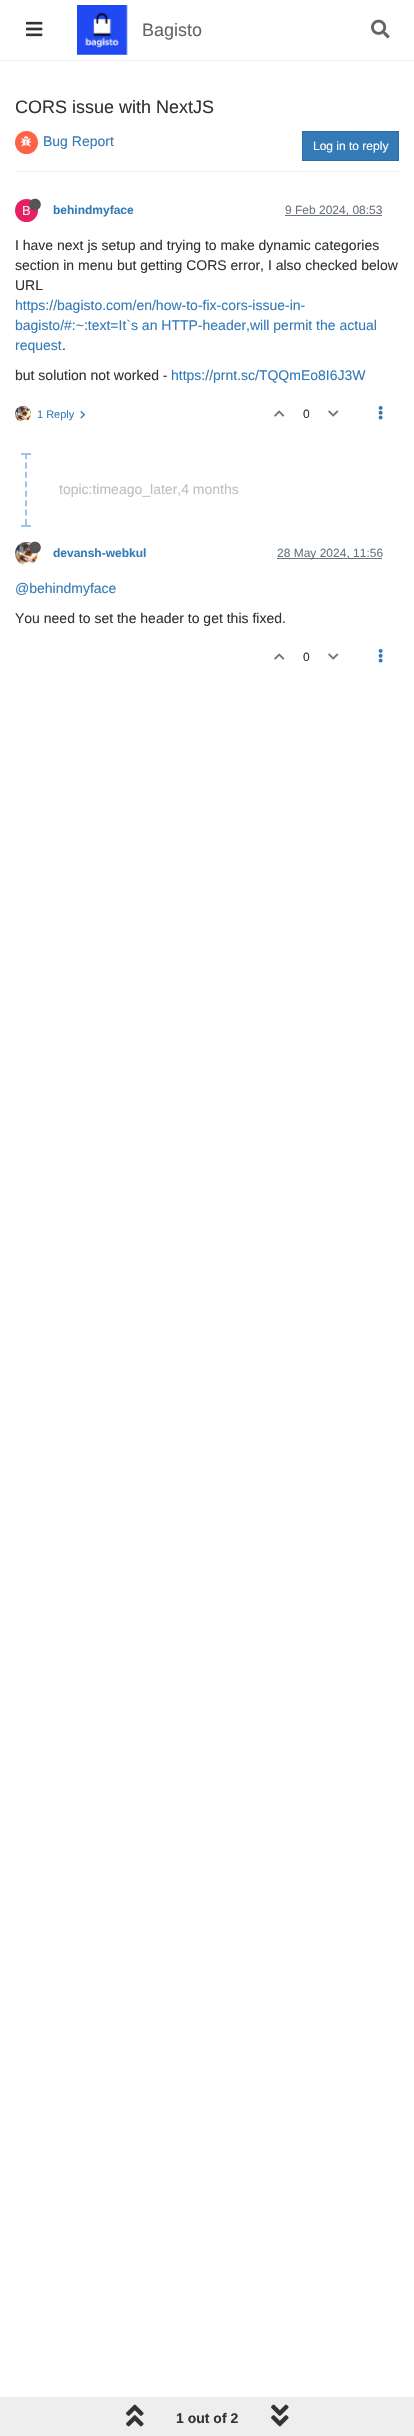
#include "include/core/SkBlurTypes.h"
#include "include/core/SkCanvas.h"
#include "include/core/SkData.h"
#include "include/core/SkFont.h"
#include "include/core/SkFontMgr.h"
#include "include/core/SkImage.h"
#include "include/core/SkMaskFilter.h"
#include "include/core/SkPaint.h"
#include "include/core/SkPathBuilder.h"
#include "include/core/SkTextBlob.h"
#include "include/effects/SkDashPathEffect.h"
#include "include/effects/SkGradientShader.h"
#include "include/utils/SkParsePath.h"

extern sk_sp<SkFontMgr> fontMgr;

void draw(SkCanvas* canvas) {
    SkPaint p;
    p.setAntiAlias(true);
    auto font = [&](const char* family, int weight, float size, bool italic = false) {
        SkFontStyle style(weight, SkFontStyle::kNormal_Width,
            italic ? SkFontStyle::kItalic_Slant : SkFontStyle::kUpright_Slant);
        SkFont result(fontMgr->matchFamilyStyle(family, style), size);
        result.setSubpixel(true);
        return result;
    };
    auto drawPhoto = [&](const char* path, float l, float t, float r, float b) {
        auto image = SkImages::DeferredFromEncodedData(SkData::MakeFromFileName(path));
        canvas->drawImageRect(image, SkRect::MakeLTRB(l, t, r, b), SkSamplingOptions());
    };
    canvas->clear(0xFFFFFFFF);
    p.setColor(0xFFEEEEEE);
    canvas->drawRect(SkRect::MakeLTRB(0, 60, 414, 61), p);
    drawPhoto("media/1.png", 26, 21, 43, 37);
    drawPhoto("media/2.png", 77, 5, 128, 55);
    auto font1 = font("Liberation Sans", 400, 18);
    p.setColor(0xFF666666);
    canvas->drawString("Bagisto", 142, 36, font1, p);
    drawPhoto("media/3.png", 371, 19, 390, 39);
    p.setColor(0xFF333333);
    canvas->drawString("CORS issue with NextJS", 15, 113, font1, p);
    p.setColor(0xFFEEEEEE);
    canvas->drawRect(SkRect::MakeLTRB(15, 171, 399, 172), p);
    p.setColor(0xFFFF6347);
    canvas->drawCircle(26.5f, 142.5f, 11.5f, p);
    drawPhoto("media/4.png", 21, 136, 31, 147);
    auto font2 = font("Liberation Sans", 400, 14);
    p.setColor(0xFF337AB7);
    canvas->drawString("Bug Report", 43, 146, font2, p);
    canvas->drawRect(SkRect::MakeLTRB(302.5f, 131.5f, 398.5f, 160.5f), p);
    p.setStyle(SkPaint::kStroke_Style);
    p.setStrokeWidth(1);
    p.setColor(0xFF2E6DA4);
    canvas->drawRect(SkRect::MakeLTRB(302.5f, 131.5f, 398.5f, 160.5f), p);
    auto font3 = font("Liberation Sans", 400, 12);
    p.setStyle(SkPaint::kFill_Style);
    p.setColor(0xFFFFFFFF);
    canvas->drawString("Log in to reply", 313, 150, font3, p);
    p.setColor(0xFFE91E63);
    canvas->drawCircle(26.5f, 210.5f, 11.5f, p);
    auto font4 = font("Liberation Sans", 400, 13);
    p.setColor(0xFFEEEEEE);
    canvas->drawString("B", 22, 215, font4, p);
    drawPhoto("media/5.png", 29, 198, 41, 211);
    auto font5 = font("Liberation Sans", 700, 12);
    p.setColor(0xFF337AB7);
    canvas->drawString("behindmyface", 53, 214, font5, p);
    p.setColor(0xFF6C757D);
    canvas->drawRect(SkRect::MakeLTRB(285, 215, 382, 216), p);
    canvas->drawString("9 Feb 2024, 08:53", 285, 214, font3, p);
    p.setColor(0xFF333333);
    {
        const struct { const char* s; float x, y; } items[] = {
            {"I have next js setup and trying to make dynamic categories", 15, 250},
            {"section in menu but getting CORS error, I also checked below", 15, 270},
            {"URL", 15, 290},
        };
        for (auto [s, x, y] : items) {
            canvas->drawString(s, x, y, font2, p);
        }
    }
    p.setColor(0xFF337AB7);
    {
        const struct { const char* s; float x, y; } items[] = {
            {"https://bagisto.com/en/how-to-fix-cors-issue-in-", 15, 310},
            {"bagisto/#:~:text=It`s an HTTP-header,will permit the actual", 15, 330},
            {"request", 15, 350},
        };
        for (auto [s, x, y] : items) {
            canvas->drawString(s, x, y, font2, p);
        }
    }
    p.setColor(0xFF333333);
    canvas->drawString(".", 62, 350, font2, p);
    canvas->drawString("but solution not worked -", 15, 380, font2, p);
    p.setColor(0xFF337AB7);
    canvas->drawString("https://prnt.sc/TQQmEo8I6J3W", 171, 380, font2, p);
    drawPhoto("media/6.png", 15, 406, 31, 422);
    auto font6 = font("Liberation Sans", 400, 11);
    canvas->drawString("1 Reply", 37, 418, font6, p);
    drawPhoto("media/7.png", 80, 411, 85, 419);
    drawPhoto("media/8.png", 274, 410, 285, 417);
    p.setColor(0xFF333333);
    canvas->drawString("0", 303, 418, font3, p);
    drawPhoto("media/9.png", 328, 410, 339, 417);
    drawPhoto("media/10.png", 378, 406, 383, 420);
    p.setStyle(SkPaint::kStroke_Style);
    p.setStrokeWidth(2);
    p.setColor(0xFFA0C4E4);
    p.setPathEffect(SkDashPathEffect::Make({{6, 3.43f}}, 0));
    canvas->drawPath(SkPathBuilder().moveTo(26, 453).lineTo(26, 525).detach(), p);
    p.setPathEffect(nullptr);
    p.setStyle(SkPaint::kFill_Style);
    canvas->drawRect(SkRect::MakeLTRB(21, 453, 31, 455), p);
    p.setColor(0xFFBFBFBF);
    canvas->drawString("topic:timeago_later,4 months", 59, 494, font2, p);
    p.setColor(0xFFA0C4E4);
    canvas->drawRect(SkRect::MakeLTRB(21, 525, 31, 527), p);
    drawPhoto("media/12.png", 15, 542, 38, 565);
    drawPhoto("media/11.png", 29, 541, 41, 554);
    p.setColor(0xFF337AB7);
    canvas->drawString("devansh-webkul", 53, 557, font5, p);
    p.setColor(0xFF6C757D);
    canvas->drawRect(SkRect::MakeLTRB(277, 558, 382, 559), p);
    canvas->drawString("28 May 2024, 11:56", 277, 557, font3, p);
    p.setColor(0xFF337AB7);
    canvas->drawString("@behindmyface", 15, 593, font2, p);
    p.setColor(0xFF333333);
    canvas->drawString("You need to set the header to get this fixed.", 15, 623, font2, p);
    drawPhoto("media/8.png", 274, 653, 285, 660);
    canvas->drawString("0", 303, 661, font3, p);
    drawPhoto("media/9.png", 328, 653, 339, 660);
    drawPhoto("media/10.png", 378, 649, 383, 663);
    p.setColor(0xFFEEEEEE);
    canvas->drawRect(SkRect::MakeLTRB(0, 2397, 414, 2436), p);
    drawPhoto("media/13.png", 126, 2404, 144, 2427);
    auto font7 = font("Liberation Sans", 700, 14);
    p.setColor(0xFF333333);
    canvas->drawString("1 out of 2", 176, 2423, font7, p);
    drawPhoto("media/14.png", 271, 2404, 289, 2427);
}
